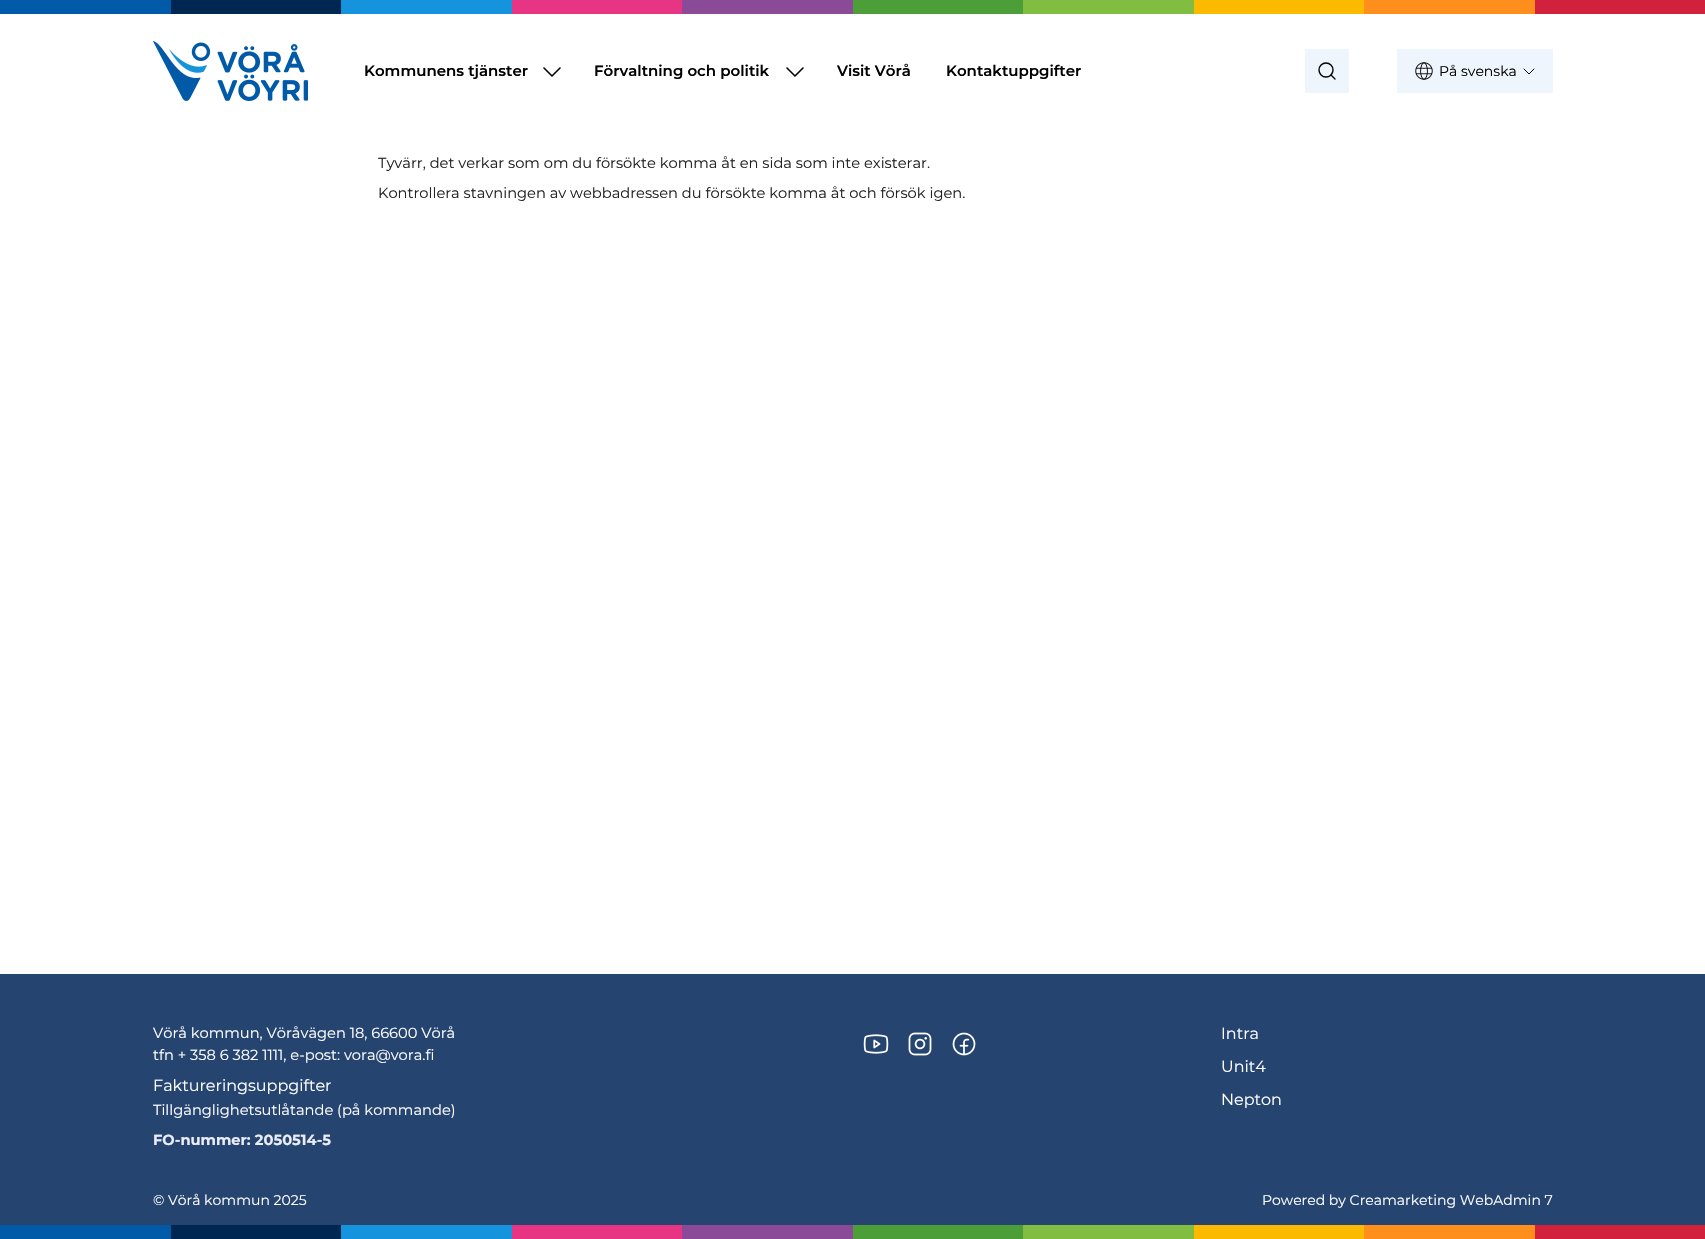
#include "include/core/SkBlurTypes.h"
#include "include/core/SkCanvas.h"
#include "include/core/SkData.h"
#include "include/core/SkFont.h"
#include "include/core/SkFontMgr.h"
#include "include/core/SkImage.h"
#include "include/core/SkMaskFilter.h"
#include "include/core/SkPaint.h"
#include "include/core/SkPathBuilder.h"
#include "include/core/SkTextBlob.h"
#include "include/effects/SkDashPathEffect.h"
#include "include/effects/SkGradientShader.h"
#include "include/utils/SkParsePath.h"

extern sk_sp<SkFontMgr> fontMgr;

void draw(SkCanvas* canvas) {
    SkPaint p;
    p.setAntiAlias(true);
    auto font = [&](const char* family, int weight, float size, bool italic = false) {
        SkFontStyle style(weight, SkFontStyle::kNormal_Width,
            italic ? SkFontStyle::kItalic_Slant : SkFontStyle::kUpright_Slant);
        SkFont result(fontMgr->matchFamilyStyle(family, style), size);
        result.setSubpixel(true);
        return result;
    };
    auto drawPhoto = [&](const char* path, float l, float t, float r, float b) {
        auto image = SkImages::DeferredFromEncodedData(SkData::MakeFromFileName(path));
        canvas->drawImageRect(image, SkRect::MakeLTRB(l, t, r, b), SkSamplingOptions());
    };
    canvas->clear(0xFFFFFFFF);
    {
        const struct { float l, t, r, b; SkColor color; } items[] = {
            {0, 0, 171, 14, 0xFF005AA7},
            {171, 0, 341, 14, 0xFF002751},
            {341, 0, 512, 14, 0xFF1594DD},
            {512, 0, 682, 14, 0xFFE83583},
            {682, 0, 853, 14, 0xFF8B4A97},
            {853, 0, 1023, 14, 0xFF4C9F38},
            {1023, 0, 1194, 14, 0xFF80BD41},
            {1194, 0, 1364, 14, 0xFFFBBA00},
            {1364, 0, 1535, 14, 0xFFFF8F1C},
            {1535, 0, 1705, 14, 0xFFD2213C},
        };
        for (auto [l, t, r, b, color] : items) {
            p.setColor(color);
            canvas->drawRect(SkRect::MakeLTRB(l, t, r, b), p);
        }
    }
    drawPhoto("media/1.png", 153, 41, 308, 101);
    auto font1 = font("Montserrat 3", 100, 15);
    p.setColor(0xFF000000);
    canvas->drawString("Kommunens tjänster", 364, 76, font1, p);
    p.setStyle(SkPaint::kStroke_Style);
    p.setStrokeWidth(1.6f);
    p.setStrokeCap(SkPaint::kRound_Cap);
    p.setStrokeJoin(SkPaint::kRound_Join);
    canvas->drawPath(SkPathBuilder().moveTo(560, 68).lineTo(552, 76).lineTo(544, 68).detach(), p);
    p.setStyle(SkPaint::kFill_Style);
    canvas->drawString("Förvaltning och politik", 594, 76, font1, p);
    p.setStyle(SkPaint::kStroke_Style);
    canvas->drawPath(SkPathBuilder().moveTo(803, 68).lineTo(795, 76).lineTo(787, 68).detach(), p);
    p.setStyle(SkPaint::kFill_Style);
    canvas->drawString("Visit Vörå", 837, 76, font1, p);
    canvas->drawString("Kontaktuppgifter", 946, 76, font1, p);
    p.setColor(0xFFEEF5FD);
    canvas->drawRect(SkRect::MakeLTRB(1305, 49, 1349, 93), p);
    p.setStyle(SkPaint::kStroke_Style);
    p.setStrokeWidth(1.4f);
    p.setStrokeCap(SkPaint::kButt_Cap);
    p.setStrokeJoin(SkPaint::kMiter_Join);
    p.setColor(0xFF000000);
    canvas->drawCircle(1326, 70, 7, p);
    p.setStrokeCap(SkPaint::kRound_Cap);
    p.setStrokeJoin(SkPaint::kRound_Join);
    canvas->drawPath(SkPathBuilder().moveTo(1331, 75).lineTo(1335, 79).detach(), p);
    p.setStyle(SkPaint::kFill_Style);
    p.setColor(0xFFEEF5FD);
    canvas->drawRect(SkRect::MakeLTRB(1397, 49, 1553, 93), p);
    drawPhoto("media/2.png", 1415, 62, 1433, 80);
    auto font2 = font("Montserrat", 100, 14);
    p.setColor(0xFF000000);
    canvas->drawString("På svenska", 1439, 76, font2, p);
    p.setStyle(SkPaint::kStroke_Style);
    p.setStrokeWidth(1);
    canvas->drawPath(SkPathBuilder().moveTo(1534, 69).lineTo(1529, 74).lineTo(1524, 69).detach(), p);
    auto font3 = font("Montserrat", 100, 14.65f);
    p.setStyle(SkPaint::kFill_Style);
    p.setColor(0xFF222222);
    canvas->drawString("Tyvärr, det verkar som om du försökte komma åt en sida som inte existerar.", 378, 168, font3, p);
    canvas->drawString("Kontrollera stavningen av webbadressen du försökte komma åt och försök igen.", 378, 198, font3, p);
    p.setColor(0xFF25446F);
    canvas->drawRect(SkRect::MakeLTRB(0, 974, 1705, 1225), p);
    p.setColor(0xFFFFFFFF);
    canvas->drawString("Vörå kommun, Vöråvägen 18, 66600 Vörå", 153, 1038, font3, p);
    canvas->drawString("tfn + 358 6 382 1111, e-post: vora@vora.fi", 153, 1060, font3, p);
    auto font4 = font("Montserrat", 100, 16);
    canvas->drawString("Faktureringsuppgifter", 153, 1091, font4, p);
    canvas->drawString("Tillgänglighetsutlåtande (på kommande)", 153, 1115, font3, p);
    auto font5 = font("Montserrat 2", 100, 14.65f);
    p.setColor(0xFFEAEDF8);
    canvas->drawString("FO-nummer: 2050514-5", 153, 1145, font5, p);
    drawPhoto("media/3.png", 863, 1034, 889, 1054);
    drawPhoto("media/4.png", 908, 1032, 932, 1056);
    drawPhoto("media/5.png", 952, 1032, 976, 1056);
    p.setColor(0xFFFFFFFF);
    {
        const struct { const char* s; float x, y; } items[] = {
            {"Intra", 1221, 1039},
            {"Unit4", 1221, 1072},
            {"Nepton", 1221, 1105},
        };
        for (auto [s, x, y] : items) {
            canvas->drawString(s, x, y, font4, p);
        }
    }
    canvas->drawString("© Vörå kommun 2025", 153, 1205, font2, p);
    canvas->drawString("Powered by Creamarketing WebAdmin 7", 1262, 1205, font2, p);
    {
        const struct { float l, t, r, b; SkColor color; } items[] = {
            {0, 1225, 171, 1239, 0xFF005AA7},
            {171, 1225, 341, 1239, 0xFF002751},
            {341, 1225, 512, 1239, 0xFF1594DD},
            {512, 1225, 682, 1239, 0xFFE83583},
            {682, 1225, 853, 1239, 0xFF8B4A97},
            {853, 1225, 1023, 1239, 0xFF4C9F38},
            {1023, 1225, 1194, 1239, 0xFF80BD41},
            {1194, 1225, 1364, 1239, 0xFFFBBA00},
            {1364, 1225, 1535, 1239, 0xFFFF8F1C},
            {1535, 1225, 1705, 1239, 0xFFD2213C},
        };
        for (auto [l, t, r, b, color] : items) {
            p.setColor(color);
            canvas->drawRect(SkRect::MakeLTRB(l, t, r, b), p);
        }
    }
}
